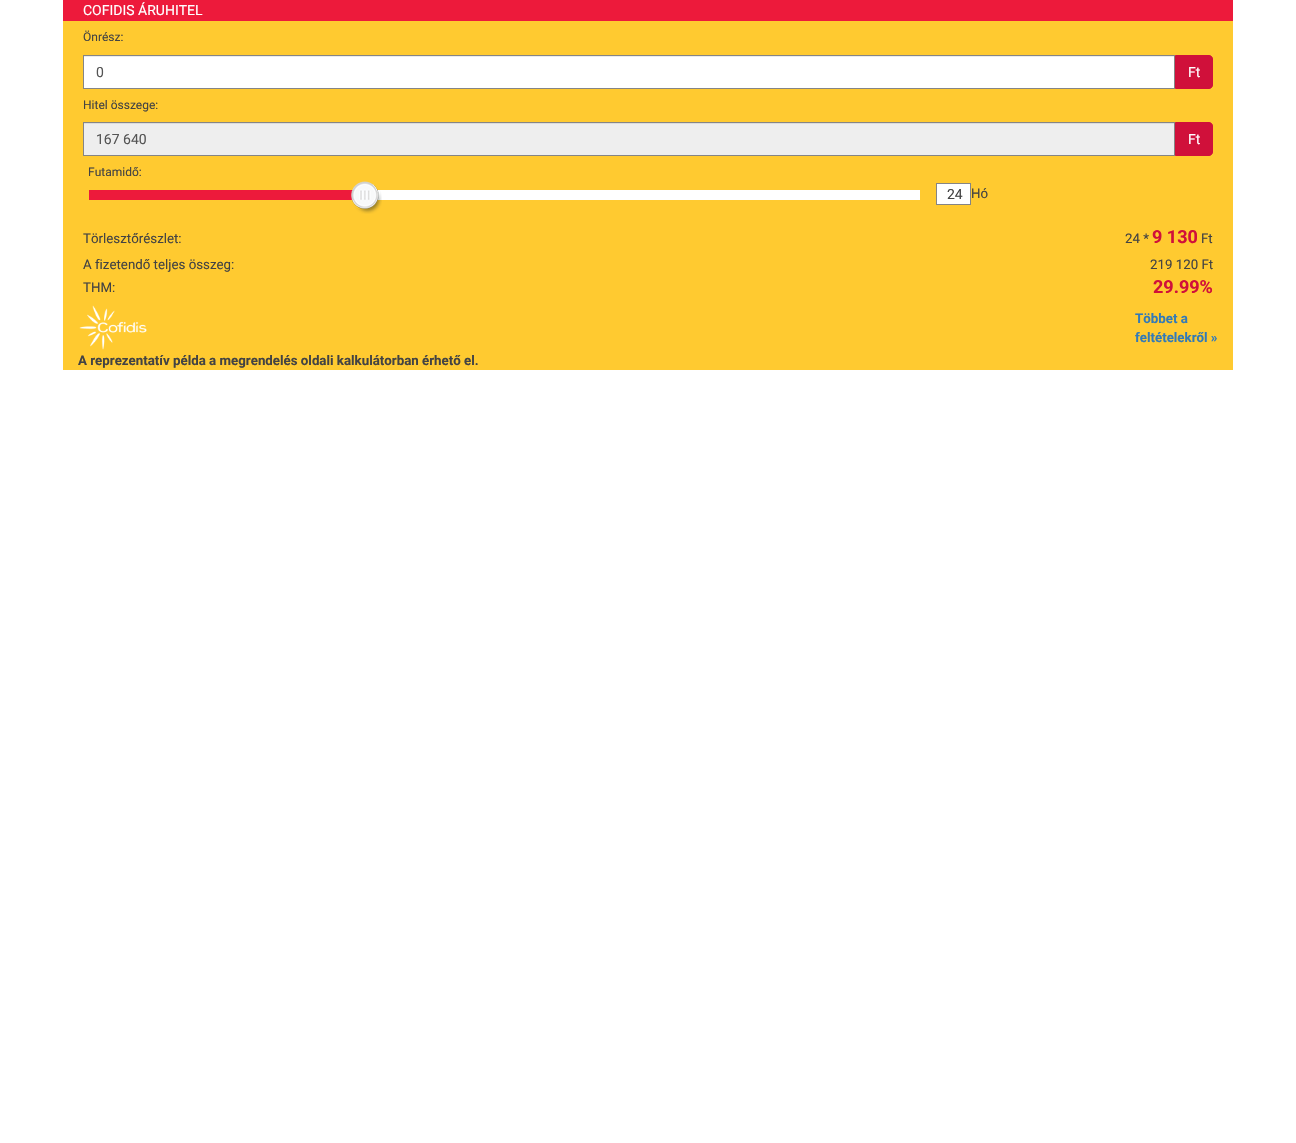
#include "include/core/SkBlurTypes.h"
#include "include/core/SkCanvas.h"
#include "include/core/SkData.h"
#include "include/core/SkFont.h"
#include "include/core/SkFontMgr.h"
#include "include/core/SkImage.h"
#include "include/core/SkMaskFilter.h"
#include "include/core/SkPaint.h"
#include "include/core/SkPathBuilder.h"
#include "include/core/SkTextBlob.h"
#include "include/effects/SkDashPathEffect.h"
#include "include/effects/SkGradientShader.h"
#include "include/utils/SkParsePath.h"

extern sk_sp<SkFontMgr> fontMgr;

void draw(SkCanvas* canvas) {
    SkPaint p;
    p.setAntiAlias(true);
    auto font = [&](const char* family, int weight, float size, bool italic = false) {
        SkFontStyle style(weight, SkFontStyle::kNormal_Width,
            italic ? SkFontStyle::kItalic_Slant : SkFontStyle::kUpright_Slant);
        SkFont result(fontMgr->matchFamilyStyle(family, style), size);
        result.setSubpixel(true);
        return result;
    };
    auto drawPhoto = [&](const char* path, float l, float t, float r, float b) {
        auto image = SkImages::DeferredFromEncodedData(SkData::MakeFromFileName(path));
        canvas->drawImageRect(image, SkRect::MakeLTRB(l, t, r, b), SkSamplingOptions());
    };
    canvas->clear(0xFFFFFFFF);
    p.setColor(0xFFFFCA30);
    canvas->drawRect(SkRect::MakeLTRB(63, 21, 1233, 370), p);
    p.setColor(0xFFED1A3B);
    canvas->drawRect(SkRect::MakeLTRB(63, 0, 1233, 21), p);
    auto font1 = font("Roboto", 400, 14);
    p.setColor(0xFFFFFFFF);
    canvas->drawString("COFIDIS ÁRUHITEL", 83, 15, font1, p);
    auto font2 = font("Roboto", 400, 12);
    p.setColor(0xFF434343);
    canvas->drawString("Önrész:", 83, 41, font2, p);
    p.setColor(0xFFFFFFFF);
    canvas->drawRect(SkRect::MakeLTRB(84, 57, 1174, 88), p);
    p.setColor(0xFFECECEC);
    canvas->drawRect(SkRect::MakeLTRB(84, 56, 1174, 57), p);
    p.setStyle(SkPaint::kStroke_Style);
    p.setStrokeWidth(1);
    p.setColor(0xFF858585);
    canvas->drawRect(SkRect::MakeLTRB(83.5f, 55.5f, 1174.5f, 88.5f), p);
    p.setStyle(SkPaint::kFill_Style);
    p.setColor(0xFF555555);
    canvas->drawString("0", 96, 77, font1, p);
    p.setColor(0xFFD0103A);
    canvas->drawPath(SkPathBuilder().moveTo(1175.5f, 55.5f).lineTo(1209, 55.5f).cubicTo(1211, 55.5f, 1212.5f, 57, 1212.5f, 59).lineTo(1212.5f, 85).cubicTo(1212.5f, 87, 1211, 88.5f, 1209, 88.5f).lineTo(1175.5f, 88.5f).close().detach(), p);
    p.setStyle(SkPaint::kStroke_Style);
    canvas->drawPath(SkPathBuilder().moveTo(1175.5f, 55.5f).lineTo(1209, 55.5f).cubicTo(1211, 55.5f, 1212.5f, 57, 1212.5f, 59).lineTo(1212.5f, 85).cubicTo(1212.5f, 87, 1211, 88.5f, 1209, 88.5f).lineTo(1175.5f, 88.5f).close().detach(), p);
    p.setStyle(SkPaint::kFill_Style);
    p.setColor(0xFFFFFFFF);
    canvas->drawString("Ft", 1188, 77, font1, p);
    p.setColor(0xFF434343);
    canvas->drawString("Hitel összege:", 83, 109, font2, p);
    p.setColor(0xFFEEEEEE);
    canvas->drawRect(SkRect::MakeLTRB(84, 124, 1174, 155), p);
    p.setColor(0xFFDCDCDC);
    canvas->drawRect(SkRect::MakeLTRB(84, 123, 1174, 124), p);
    p.setStyle(SkPaint::kStroke_Style);
    p.setColor(0xFF858585);
    canvas->drawRect(SkRect::MakeLTRB(83.5f, 122.5f, 1174.5f, 155.5f), p);
    p.setStyle(SkPaint::kFill_Style);
    p.setColor(0xFF555555);
    canvas->drawString("167 640", 96, 144, font1, p);
    p.setColor(0xFFD0103A);
    canvas->drawPath(SkPathBuilder().moveTo(1175.5f, 122.5f).lineTo(1209, 122.5f).cubicTo(1211, 122.5f, 1212.5f, 124, 1212.5f, 126).lineTo(1212.5f, 152).cubicTo(1212.5f, 154, 1211, 155.5f, 1209, 155.5f).lineTo(1175.5f, 155.5f).close().detach(), p);
    p.setStyle(SkPaint::kStroke_Style);
    canvas->drawPath(SkPathBuilder().moveTo(1175.5f, 122.5f).lineTo(1209, 122.5f).cubicTo(1211, 122.5f, 1212.5f, 124, 1212.5f, 126).lineTo(1212.5f, 152).cubicTo(1212.5f, 154, 1211, 155.5f, 1209, 155.5f).lineTo(1175.5f, 155.5f).close().detach(), p);
    p.setStyle(SkPaint::kFill_Style);
    p.setColor(0xFFFFFFFF);
    canvas->drawString("Ft", 1188, 144, font1, p);
    p.setColor(0xFF434343);
    canvas->drawString("Futamidő:", 88, 176, font2, p);
    p.setColor(0xFFFFFFFF);
    canvas->drawRect(SkRect::MakeLTRB(377, 190, 920, 200), p);
    p.setColor(0xFFED1A3B);
    canvas->drawRect(SkRect::MakeLTRB(89, 190, 353, 200), p);
    drawPhoto("media/1.png", 351, 181, 382, 214);
    p.setColor(0xFFFFFFFF);
    canvas->drawRect(SkRect::MakeLTRB(936.5f, 183.5f, 970.5f, 204.5f), p);
    p.setStyle(SkPaint::kStroke_Style);
    p.setColor(0xFF858585);
    canvas->drawRect(SkRect::MakeLTRB(936.5f, 183.5f, 970.5f, 204.5f), p);
    p.setStyle(SkPaint::kFill_Style);
    p.setColor(0xFF434343);
    canvas->drawString("24", 947, 199, font1, p);
    auto font3 = font("Roboto", 400, 13.3f);
    {
        const struct { const char* s; float x, y; } items[] = {
            {"Hó", 971, 198},
            {"Törlesztőrészlet:", 83, 243},
            {"24 *", 1125, 243},
        };
        for (auto [s, x, y] : items) {
            canvas->drawString(s, x, y, font3, p);
        }
    }
    auto font4 = font("Roboto", 700, 18);
    p.setColor(0xFFD0103A);
    canvas->drawString("9 130", 1152, 243, font4, p);
    p.setColor(0xFF434343);
    {
        const struct { const char* s; float x, y; } items[] = {
            {"Ft", 1201, 243},
            {"A fizetendő teljes összeg:", 83, 269},
            {"219 120 Ft", 1150, 269},
            {"THM:", 83, 292},
        };
        for (auto [s, x, y] : items) {
            canvas->drawString(s, x, y, font3, p);
        }
    }
    p.setColor(0xFFD0103A);
    canvas->drawString("29.99%", 1153, 293, font4, p);
    drawPhoto("media/2.png", 79, 305, 147, 350);
    auto font5 = font("Roboto", 700, 13.3f);
    p.setColor(0xFF337AB7);
    canvas->drawString("Többet a", 1135, 323, font5, p);
    canvas->drawString("feltételekről »", 1135, 342, font5, p);
    p.setColor(0xFF434343);
    canvas->drawString("A reprezentatív példa a megrendelés oldali kalkulátorban érhető el.", 78, 365, font5, p);
}
